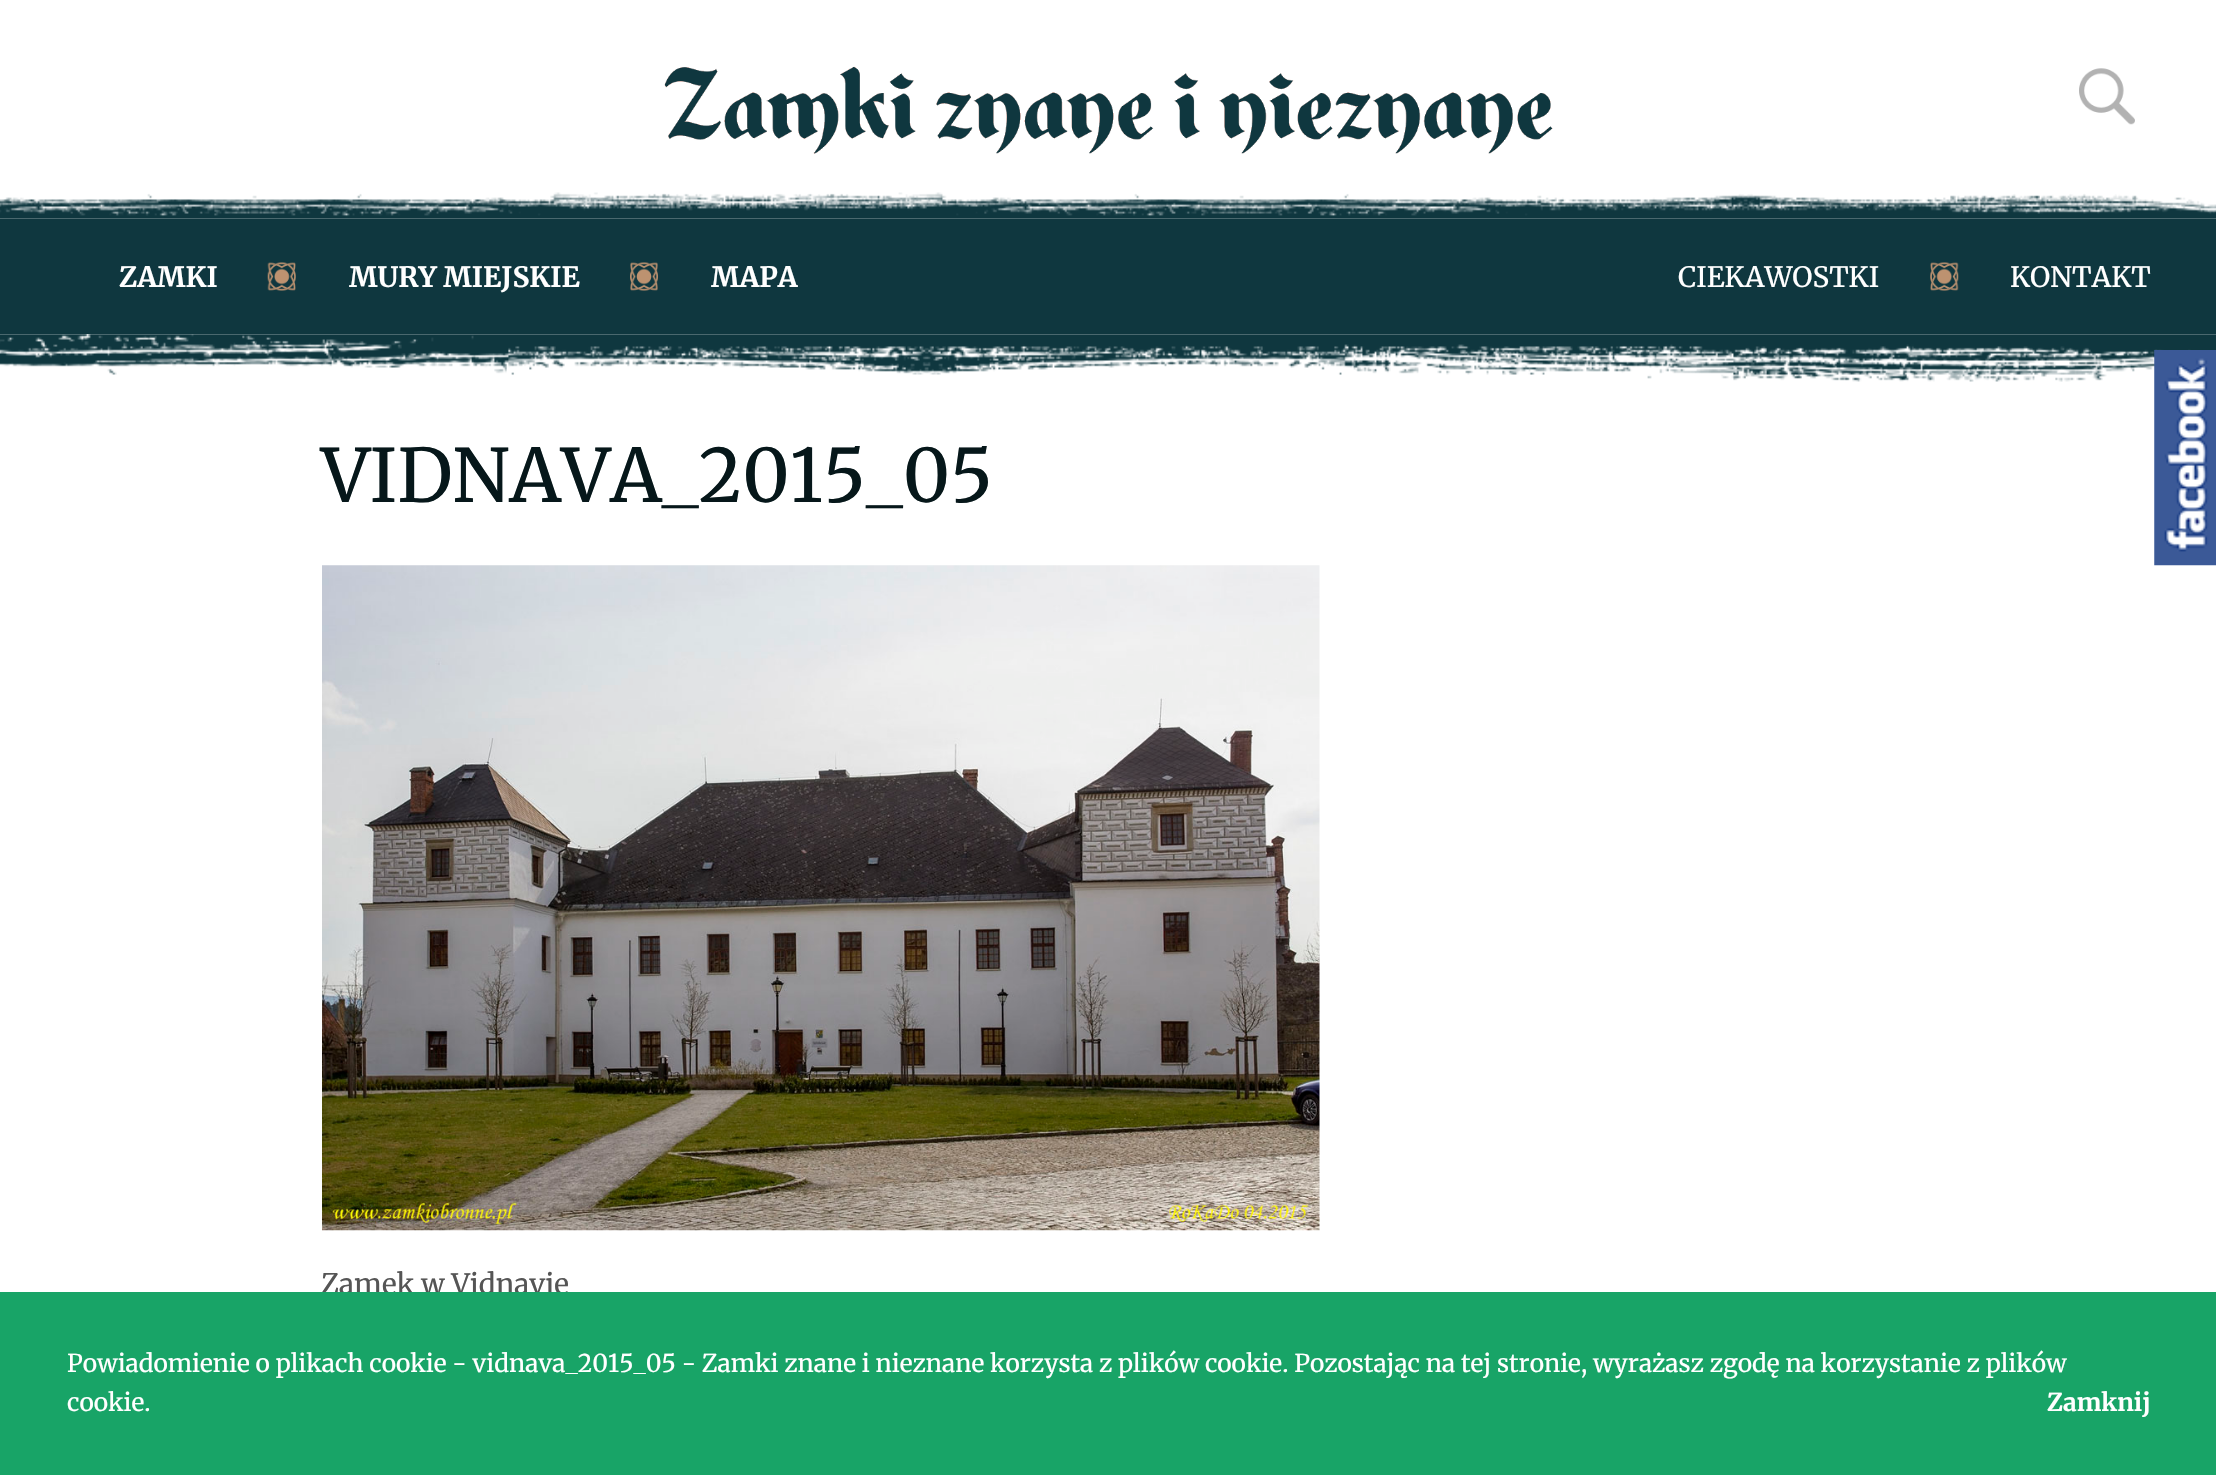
#include "include/core/SkBlurTypes.h"
#include "include/core/SkCanvas.h"
#include "include/core/SkData.h"
#include "include/core/SkFont.h"
#include "include/core/SkFontMgr.h"
#include "include/core/SkImage.h"
#include "include/core/SkMaskFilter.h"
#include "include/core/SkPaint.h"
#include "include/core/SkPathBuilder.h"
#include "include/core/SkTextBlob.h"
#include "include/effects/SkDashPathEffect.h"
#include "include/effects/SkGradientShader.h"
#include "include/utils/SkParsePath.h"

extern sk_sp<SkFontMgr> fontMgr;

void draw(SkCanvas* canvas) {
    SkPaint p;
    p.setAntiAlias(true);
    auto font = [&](const char* family, int weight, float size, bool italic = false) {
        SkFontStyle style(weight, SkFontStyle::kNormal_Width,
            italic ? SkFontStyle::kItalic_Slant : SkFontStyle::kUpright_Slant);
        SkFont result(fontMgr->matchFamilyStyle(family, style), size);
        result.setSubpixel(true);
        return result;
    };
    auto drawPhoto = [&](const char* path, float l, float t, float r, float b) {
        auto image = SkImages::DeferredFromEncodedData(SkData::MakeFromFileName(path));
        canvas->drawImageRect(image, SkRect::MakeLTRB(l, t, r, b), SkSamplingOptions());
    };
    canvas->clear(0xFFFFFFFF);
    drawPhoto("media/1.png", 664, 66, 1553, 154);
    drawPhoto("media/2.png", 2079, 68, 2135, 125);
    p.setColor(0xFF0F373F);
    canvas->drawRect(SkRect::MakeLTRB(0, 219, 2216, 334), p);
    drawPhoto("media/3.png", 0, 192, 2216, 219);
    drawPhoto("media/4.png", 267, 262, 296, 291);
    auto font1 = font("Merriweather", 700, 28);
    p.setColor(0xFFFFFFFF);
    canvas->drawString("ZAMKI", 119, 287, font1, p);
    drawPhoto("media/5.png", 630, 262, 658, 291);
    canvas->drawString("MURY MIEJSKIE", 349, 287, font1, p);
    canvas->drawString("MAPA", 711, 287, font1, p);
    drawPhoto("media/6.png", 1930, 262, 1959, 291);
    auto font2 = font("Merriweather", 400, 28);
    canvas->drawString("CIEKAWOSTKI", 1678, 287, font2, p);
    canvas->drawString("KONTAKT", 2010, 287, font2, p);
    drawPhoto("media/7.png", 0, 334, 2216, 382);
    auto font3 = font("Merriweather", 400, 73.5f);
    p.setColor(0xFF06171A);
    canvas->drawString("VIDNAVA_2015_05", 321, 502, font3, p);
    drawPhoto("media/8.png", 322, 565, 1320, 1231);
    p.setColor(0xFF555555);
    canvas->drawString("Zamek w Vidnavie", 321, 1294, font2, p);
    drawPhoto("media/9.png", 2154, 350, 2216, 566);
    p.setColor(0xFF18A467);
    canvas->drawRect(SkRect::MakeLTRB(0, 1292, 2216, 1475), p);
    auto font4 = font("Merriweather", 400, 24.5f);
    p.setColor(0xFFFFFFFF);
    canvas->drawString("Powiadomienie o plikach cookie - vidnava_2015_05 - Zamki znane i nieznane korzysta z plików cookie. Pozostając na tej stronie, wyrażasz zgodę na korzystanie z plików", 67, 1372, font4, p);
    canvas->drawString("cookie.", 67, 1411, font4, p);
    auto font5 = font("Merriweather", 700, 24.5f);
    canvas->drawString("Zamknij", 2047, 1411, font5, p);
}
